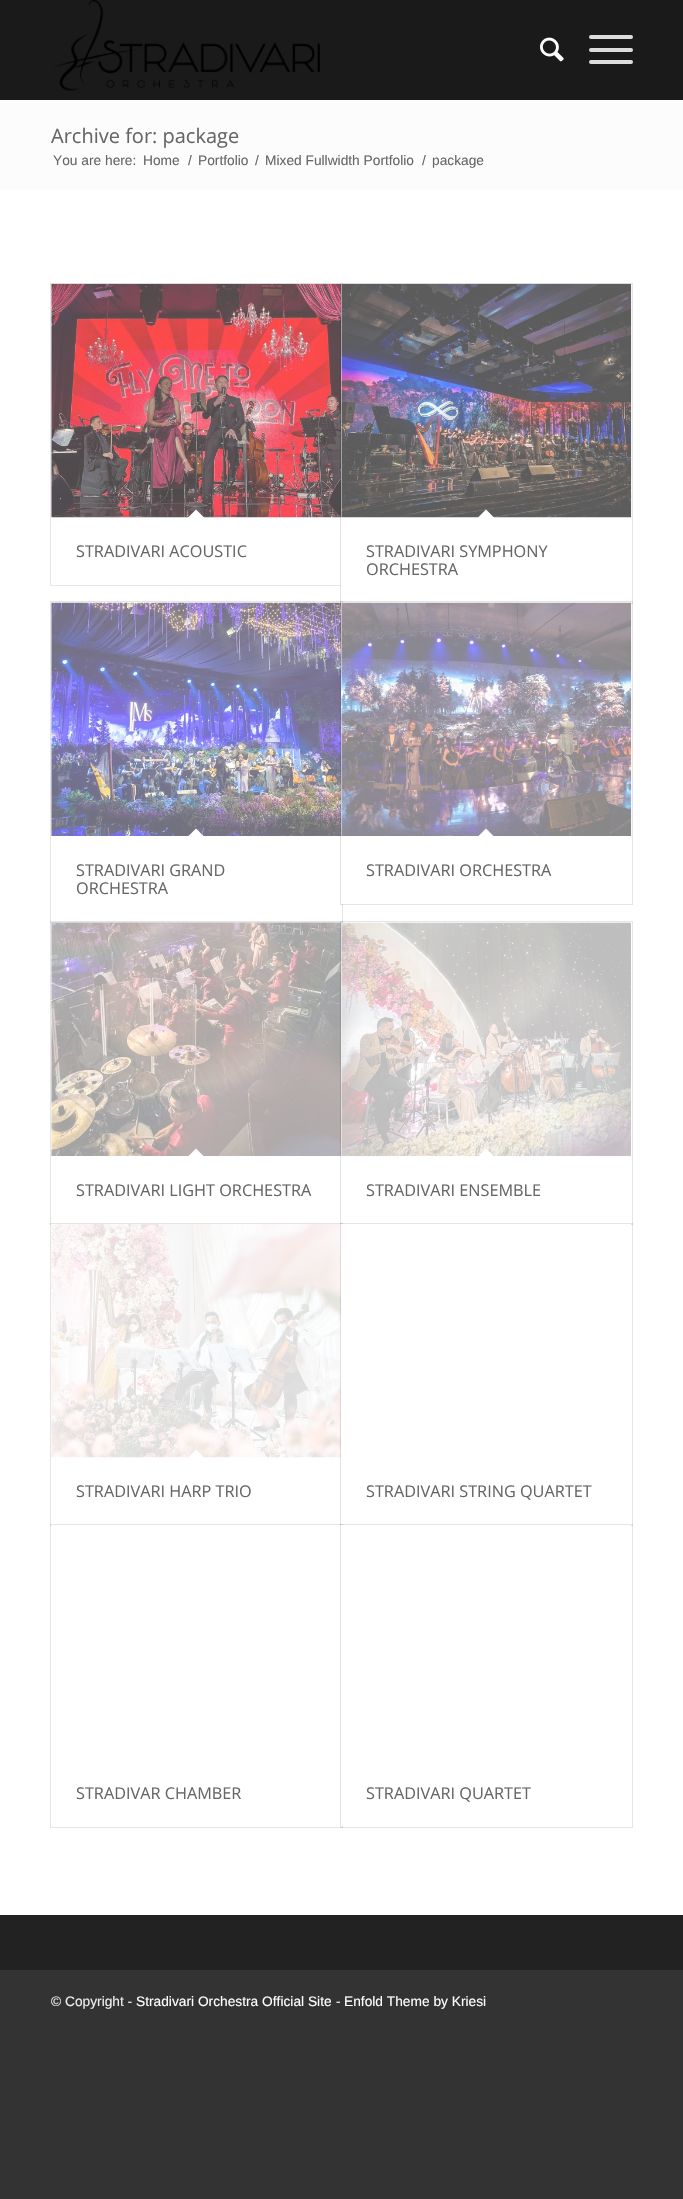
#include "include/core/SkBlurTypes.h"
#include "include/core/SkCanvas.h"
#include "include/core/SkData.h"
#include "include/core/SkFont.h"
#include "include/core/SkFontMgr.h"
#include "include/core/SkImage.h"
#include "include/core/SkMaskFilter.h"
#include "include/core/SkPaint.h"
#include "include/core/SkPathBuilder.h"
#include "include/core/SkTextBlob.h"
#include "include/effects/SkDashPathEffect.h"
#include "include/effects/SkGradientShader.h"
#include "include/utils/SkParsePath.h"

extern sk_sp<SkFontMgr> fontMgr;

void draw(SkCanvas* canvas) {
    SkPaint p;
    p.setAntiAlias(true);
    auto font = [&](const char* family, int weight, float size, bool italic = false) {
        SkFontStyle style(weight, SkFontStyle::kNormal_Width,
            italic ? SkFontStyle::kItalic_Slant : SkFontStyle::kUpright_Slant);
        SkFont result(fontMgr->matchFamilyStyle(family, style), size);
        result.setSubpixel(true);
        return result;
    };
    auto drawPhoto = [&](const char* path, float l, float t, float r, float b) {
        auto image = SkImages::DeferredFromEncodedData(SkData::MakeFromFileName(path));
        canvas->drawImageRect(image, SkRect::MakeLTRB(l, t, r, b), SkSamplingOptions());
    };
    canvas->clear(0xFF333333);
    p.setColor(0xFF1A1A1A);
    canvas->drawRect(SkRect::MakeLTRB(0, 0, 683, 100), p);
    drawPhoto("media/1.png", 54, 0, 320, 91);
    drawPhoto("media/2.png", 540, 37, 564, 62);
    p.setColor(0xFFDDDDDD);
    canvas->drawRoundRect(SkRect::MakeLTRB(589, 48, 633, 52), 2, 2, p);
    canvas->drawRoundRect(SkRect::MakeLTRB(589, 35, 633, 39), 2, 2, p);
    canvas->drawRoundRect(SkRect::MakeLTRB(589, 60, 633, 64), 2, 2, p);
    p.setColor(0xFFFFFFFF);
    canvas->drawRect(SkRect::MakeLTRB(0, 190, 683, 1915), p);
    p.setColor(0xFFFCFCFC);
    canvas->drawRect(SkRect::MakeLTRB(0, 100, 683, 190), p);
    auto font1 = font("Open Sans", 400, 20);
    p.setColor(0xFF666666);
    canvas->drawString("Archive for: package", 51, 143, font1, p);
    auto font2 = font("Liberation Sans", 400, 13.75f);
    {
        const struct { const char* s; float x, y; } items[] = {
            {"You are here:", 53, 165},
            {"Home", 143, 165},
            {"/", 188, 165},
            {"Portfolio", 198, 165},
            {"/", 255, 165},
            {"Mixed Fullwidth Portfolio", 265, 165},
            {"/", 422, 165},
            {"package", 432, 165},
        };
        for (auto [s, x, y] : items) {
            canvas->drawString(s, x, y, font2, p);
        }
    }
    p.setStyle(SkPaint::kStroke_Style);
    p.setStrokeWidth(1);
    p.setColor(0xFFE6E6E6);
    canvas->drawRect(SkRect::MakeLTRB(50.5f, 283.5f, 342.5f, 585.5f), p);
    drawPhoto("media/3.png", 51, 283, 341, 518);
    p.setStyle(SkPaint::kFill_Style);
    p.setColor(0xFFFFFFFF);
    canvas->drawPath(SkPathBuilder().moveTo(196, 509.5f).lineTo(205, 518.5f).lineTo(196, 527.5f).lineTo(187, 518.5f).close().detach(), p);
    auto font3 = font("Open Sans", 400, 16.25f);
    p.setColor(0xFF666666);
    canvas->drawString("STRADIVARI ACOUSTIC", 76, 557, font3, p);
    p.setStyle(SkPaint::kStroke_Style);
    p.setColor(0x1A000000);
    canvas->drawRect(SkRect::MakeLTRB(340.5f, 283.5f, 632.5f, 603.5f), p);
    p.setStyle(SkPaint::kFill_Style);
    p.setColor(0xFFFFFFFF);
    canvas->drawRect(SkRect::MakeLTRB(341, 284, 343, 586), p);
    drawPhoto("media/4.png", 341, 283, 632, 518);
    canvas->drawPath(SkPathBuilder().moveTo(486, 509.5f).lineTo(495, 518.5f).lineTo(486, 527.5f).lineTo(477, 518.5f).close().detach(), p);
    p.setColor(0xFF666666);
    canvas->drawString("STRADIVARI SYMPHONY", 366, 557, font3, p);
    canvas->drawString("ORCHESTRA", 366, 575, font3, p);
    p.setStyle(SkPaint::kStroke_Style);
    p.setColor(0x1A000000);
    canvas->drawRect(SkRect::MakeLTRB(50.5f, 601.5f, 342.5f, 922.5f), p);
    p.setStyle(SkPaint::kFill_Style);
    p.setColor(0xFFFFFFFF);
    canvas->drawRect(SkRect::MakeLTRB(340, 603, 341, 604), p);
    drawPhoto("media/5.png", 51, 602, 341, 836);
    canvas->drawPath(SkPathBuilder().moveTo(196, 828.5f).lineTo(205, 837.5f).lineTo(196, 846).lineTo(187, 837.5f).close().detach(), p);
    p.setColor(0xFF666666);
    canvas->drawString("STRADIVARI GRAND", 76, 876, font3, p);
    canvas->drawString("ORCHESTRA", 76, 894, font3, p);
    p.setStyle(SkPaint::kStroke_Style);
    p.setColor(0x1A000000);
    canvas->drawRect(SkRect::MakeLTRB(340.5f, 601.5f, 632.5f, 904.5f), p);
    p.setStyle(SkPaint::kFill_Style);
    p.setColor(0xFFFFFFFF);
    canvas->drawRect(SkRect::MakeLTRB(341, 603, 631, 836), p);
    drawPhoto("media/6.png", 341, 602, 632, 836);
    canvas->drawRect(SkRect::MakeLTRB(342, 836, 343, 904), p);
    canvas->drawPath(SkPathBuilder().moveTo(486, 828.5f).lineTo(495, 837.5f).lineTo(486, 846).lineTo(477, 837.5f).close().detach(), p);
    p.setColor(0xFF666666);
    canvas->drawString("STRADIVARI ORCHESTRA", 366, 876, font3, p);
    p.setStyle(SkPaint::kStroke_Style);
    p.setColor(0x1A000000);
    canvas->drawRect(SkRect::MakeLTRB(50.5f, 921.5f, 342.5f, 1224.5f), p);
    drawPhoto("media/7.png", 51, 922, 341, 1156);
    p.setStyle(SkPaint::kFill_Style);
    p.setColor(0xFFFFFFFF);
    canvas->drawPath(SkPathBuilder().moveTo(196, 1148.5f).lineTo(205, 1157.5f).lineTo(196, 1166).lineTo(187, 1157.5f).close().detach(), p);
    p.setColor(0xFF666666);
    canvas->drawString("STRADIVARI LIGHT ORCHESTRA", 76, 1196, font3, p);
    p.setStyle(SkPaint::kStroke_Style);
    p.setColor(0x1A000000);
    canvas->drawRect(SkRect::MakeLTRB(340.5f, 921.5f, 632.5f, 1224.5f), p);
    p.setStyle(SkPaint::kFill_Style);
    p.setColor(0xFFFFFFFF);
    canvas->drawRect(SkRect::MakeLTRB(342, 923, 343, 1224), p);
    drawPhoto("media/8.png", 341, 922, 631, 1156);
    canvas->drawPath(SkPathBuilder().moveTo(486, 1148.5f).lineTo(495, 1157.5f).lineTo(486, 1166).lineTo(477, 1157.5f).close().detach(), p);
    p.setColor(0xFF666666);
    canvas->drawString("STRADIVARI ENSEMBLE", 366, 1196, font3, p);
    p.setStyle(SkPaint::kStroke_Style);
    p.setColor(0x1A000000);
    canvas->drawRect(SkRect::MakeLTRB(50.5f, 1223.5f, 342.5f, 1525.5f), p);
    p.setStyle(SkPaint::kFill_Style);
    p.setColor(0xFFFFFFFF);
    canvas->drawRect(SkRect::MakeLTRB(51, 1224, 341, 1225), p);
    drawPhoto("media/9.png", 51, 1224, 341, 1458);
    canvas->drawPath(SkPathBuilder().moveTo(196, 1449.5f).lineTo(205, 1458.5f).lineTo(196, 1467.5f).lineTo(187, 1458.5f).close().detach(), p);
    p.setColor(0xFF666666);
    canvas->drawString("STRADIVARI HARP TRIO", 76, 1497, font3, p);
    p.setStyle(SkPaint::kStroke_Style);
    p.setColor(0x1A000000);
    canvas->drawRect(SkRect::MakeLTRB(340.5f, 1223.5f, 632.5f, 1525.5f), p);
    p.setStyle(SkPaint::kFill_Style);
    p.setColor(0xFFFFFFFF);
    canvas->drawRect(SkRect::MakeLTRB(341, 1224, 631, 1525), p);
    p.setColor(0xFF666666);
    canvas->drawString("STRADIVARI STRING QUARTET", 366, 1497, font3, p);
    p.setStyle(SkPaint::kStroke_Style);
    p.setColor(0x1A000000);
    canvas->drawRect(SkRect::MakeLTRB(50.5f, 1524.5f, 342.5f, 1827.5f), p);
    p.setStyle(SkPaint::kFill_Style);
    p.setColor(0xFFFFFFFF);
    canvas->drawRect(SkRect::MakeLTRB(51, 1525, 341, 1526), p);
    p.setColor(0xFF666666);
    canvas->drawString("STRADIVAR CHAMBER", 76, 1799, font3, p);
    p.setStyle(SkPaint::kStroke_Style);
    p.setColor(0x1A000000);
    canvas->drawRect(SkRect::MakeLTRB(340.5f, 1524.5f, 632.5f, 1827.5f), p);
    p.setStyle(SkPaint::kFill_Style);
    p.setColor(0xFFFFFFFF);
    canvas->drawRect(SkRect::MakeLTRB(341, 1525, 631, 1826), p);
    p.setColor(0xFF666666);
    canvas->drawString("STRADIVARI QUARTET", 366, 1799, font3, p);
    p.setColor(0xFF222222);
    canvas->drawRect(SkRect::MakeLTRB(0, 1915, 683, 1970), p);
    p.setColor(0xFFEEEEEE);
    canvas->drawString("© Copyright -", 51, 2006, font2, p);
    p.setColor(0xFFFFFFFF);
    canvas->drawString("Stradivari Orchestra Official Site", 136, 2006, font2, p);
    p.setColor(0xFFEEEEEE);
    canvas->drawString("-", 336, 2006, font2, p);
    p.setColor(0xFFFFFFFF);
    canvas->drawString("Enfold Theme by Kriesi", 344, 2006, font2, p);
}
